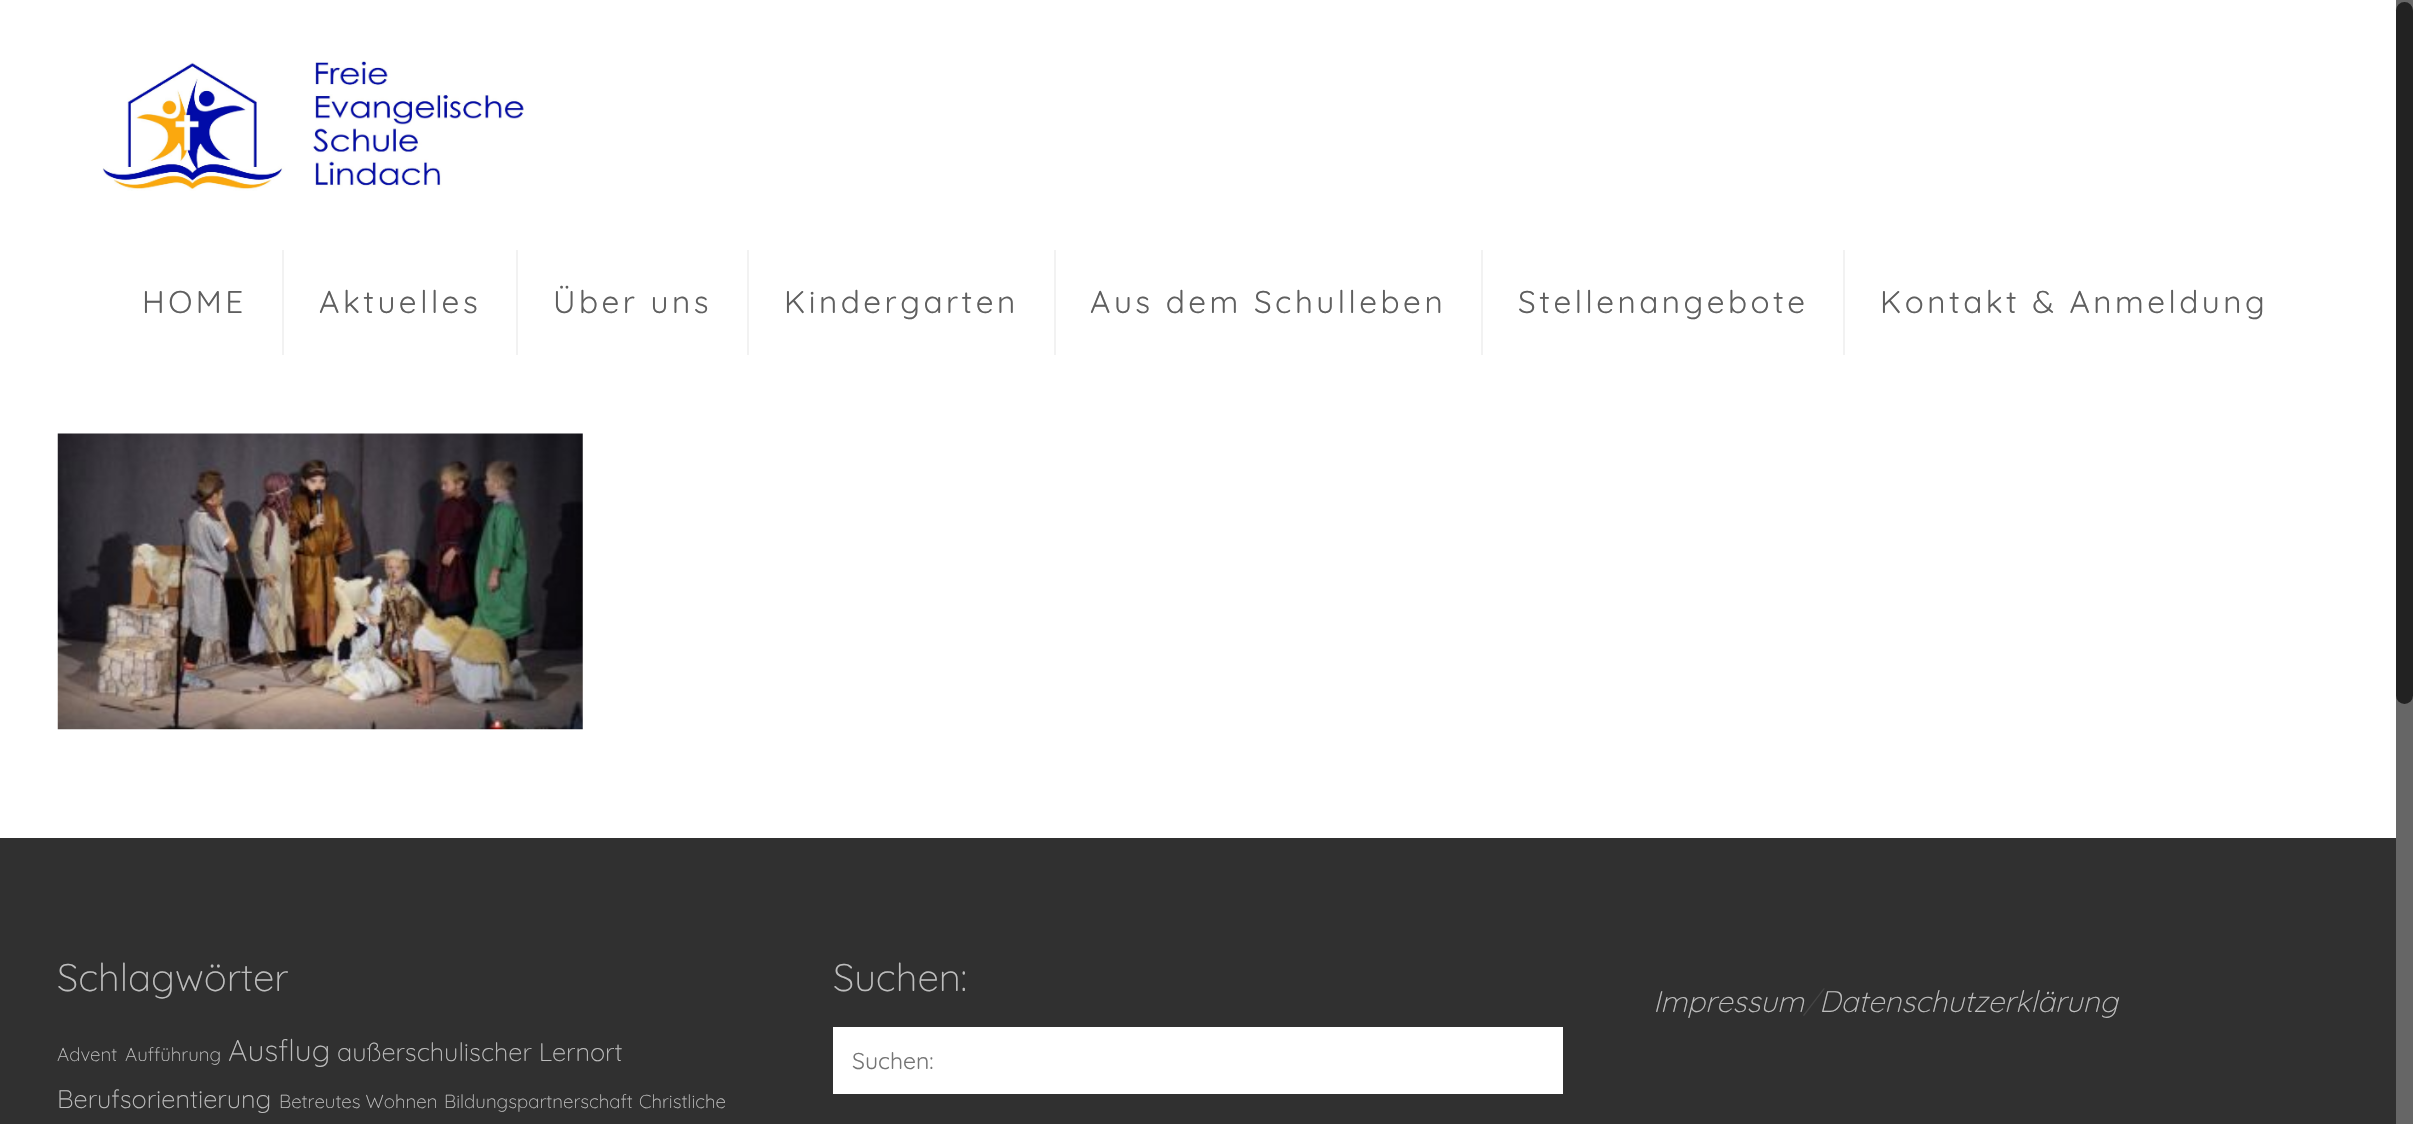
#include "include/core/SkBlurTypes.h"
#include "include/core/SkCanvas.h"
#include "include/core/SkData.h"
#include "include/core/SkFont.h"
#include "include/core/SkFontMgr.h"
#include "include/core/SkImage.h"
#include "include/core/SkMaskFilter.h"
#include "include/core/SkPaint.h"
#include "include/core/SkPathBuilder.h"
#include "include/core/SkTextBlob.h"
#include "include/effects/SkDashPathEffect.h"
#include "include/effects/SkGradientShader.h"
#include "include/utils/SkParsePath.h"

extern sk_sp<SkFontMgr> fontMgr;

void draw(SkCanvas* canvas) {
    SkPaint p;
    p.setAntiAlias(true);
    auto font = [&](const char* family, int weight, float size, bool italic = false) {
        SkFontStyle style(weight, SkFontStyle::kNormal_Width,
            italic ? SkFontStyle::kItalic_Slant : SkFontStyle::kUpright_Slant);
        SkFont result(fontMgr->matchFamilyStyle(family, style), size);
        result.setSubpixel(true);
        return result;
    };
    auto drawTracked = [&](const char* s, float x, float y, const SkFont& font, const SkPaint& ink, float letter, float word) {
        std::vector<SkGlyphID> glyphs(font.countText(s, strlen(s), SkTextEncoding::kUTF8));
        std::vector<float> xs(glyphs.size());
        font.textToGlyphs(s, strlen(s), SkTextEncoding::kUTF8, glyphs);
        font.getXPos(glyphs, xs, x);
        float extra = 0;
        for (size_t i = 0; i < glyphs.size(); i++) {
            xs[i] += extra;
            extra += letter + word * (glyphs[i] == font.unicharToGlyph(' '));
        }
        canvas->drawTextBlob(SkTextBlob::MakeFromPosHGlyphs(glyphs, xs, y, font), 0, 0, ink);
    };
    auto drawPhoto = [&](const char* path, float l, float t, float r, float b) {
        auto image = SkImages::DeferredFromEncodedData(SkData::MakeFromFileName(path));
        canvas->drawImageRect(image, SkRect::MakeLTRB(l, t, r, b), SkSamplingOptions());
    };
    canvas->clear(0xFFFFFFFF);
    drawPhoto("media/1.png", 102, 60, 524, 191);
    p.setColor(0xFFF2F2F2);
    canvas->drawRect(SkRect::MakeLTRB(282, 250, 284, 355), p);
    auto font1 = font("Quicksand", 400, 31.5f);
    p.setColor(0xFF5F5F5F);
    drawTracked("HOME", 142, 313, font1, p, 3.5f, 0);
    p.setColor(0xFFF2F2F2);
    canvas->drawRect(SkRect::MakeLTRB(516, 250, 518, 355), p);
    p.setColor(0xFF5F5F5F);
    drawTracked("Aktuelles", 319, 313, font1, p, 3.5f, 0);
    p.setColor(0xFFF2F2F2);
    canvas->drawRect(SkRect::MakeLTRB(747, 250, 749, 355), p);
    p.setColor(0xFF5F5F5F);
    drawTracked("Über uns", 553, 313, font1, p, 3.5f, 0);
    p.setColor(0xFFF2F2F2);
    canvas->drawRect(SkRect::MakeLTRB(1054, 250, 1056, 355), p);
    p.setColor(0xFF5F5F5F);
    drawTracked("Kindergarten", 784, 313, font1, p, 3.5f, 0);
    p.setColor(0xFFF2F2F2);
    canvas->drawRect(SkRect::MakeLTRB(1481, 250, 1483, 355), p);
    p.setColor(0xFF5F5F5F);
    drawTracked("Aus dem Schulleben", 1090, 313, font1, p, 3.5f, 0);
    p.setColor(0xFFF2F2F2);
    canvas->drawRect(SkRect::MakeLTRB(1843, 250, 1845, 355), p);
    p.setColor(0xFF5F5F5F);
    drawTracked("Stellenangebote", 1518, 313, font1, p, 3.5f, 0);
    drawTracked("Kontakt & Anmeldung", 1880, 313, font1, p, 3.5f, 0);
    drawPhoto("media/2.png", 57, 433, 583, 730);
    p.setColor(0xFF303030);
    canvas->drawRect(SkRect::MakeLTRB(0, 838, 2396, 1124), p);
    auto font2 = font("Quicksand", 300, 38.5f);
    p.setColor(0xFFBDBDBD);
    canvas->drawString("Schlagwörter", 57, 991, font2, p);
    auto font3 = font("Quicksand", 300, 18.75f);
    canvas->drawString("Advent", 57, 1061, font3, p);
    canvas->drawString("Aufführung", 125, 1061, font3, p);
    auto font4 = font("Quicksand", 300, 30);
    canvas->drawString("Ausflug", 228, 1061, font4, p);
    auto font5 = font("Quicksand", 300, 25.4f);
    canvas->drawString("außerschulischer Lernort", 337, 1061, font5, p);
    canvas->drawString("Berufsorientierung", 57, 1108, font5, p);
    {
        const struct { const char* s; float x, y; } items[] = {
            {"Betreutes Wohnen", 279, 1108},
            {"Bildungspartnerschaft", 444, 1108},
            {"Christliche", 639, 1108},
        };
        for (auto [s, x, y] : items) {
            canvas->drawString(s, x, y, font3, p);
        }
    }
    canvas->drawString("Suchen:", 833, 991, font2, p);
    p.setColor(0xFFFFFFFF);
    canvas->drawRect(SkRect::MakeLTRB(833, 1027, 1563, 1094), p);
    auto font6 = font("Quicksand", 400, 23);
    p.setColor(0xFF757575);
    canvas->drawString("Suchen:", 852, 1069, font6, p);
    auto font7 = font("Quicksand", 300, 29.75f, true);
    p.setColor(0xFFBDBDBD);
    canvas->drawString("Impressum", 1653, 1012, font7, p);
    p.setColor(0xFF444444);
    canvas->drawString("/", 1804, 1012, font7, p);
    p.setColor(0xFFBDBDBD);
    canvas->drawString("Datenschutzerklärung", 1819, 1012, font7, p);
    p.setColor(0xFF666666);
    canvas->drawRect(SkRect::MakeLTRB(2396, 0, 2413, 1124), p);
    p.setColor(0xFF222222);
    canvas->drawRoundRect(SkRect::MakeLTRB(2396, 2, 2413, 704), 8.5f, 8.5f, p);
}
